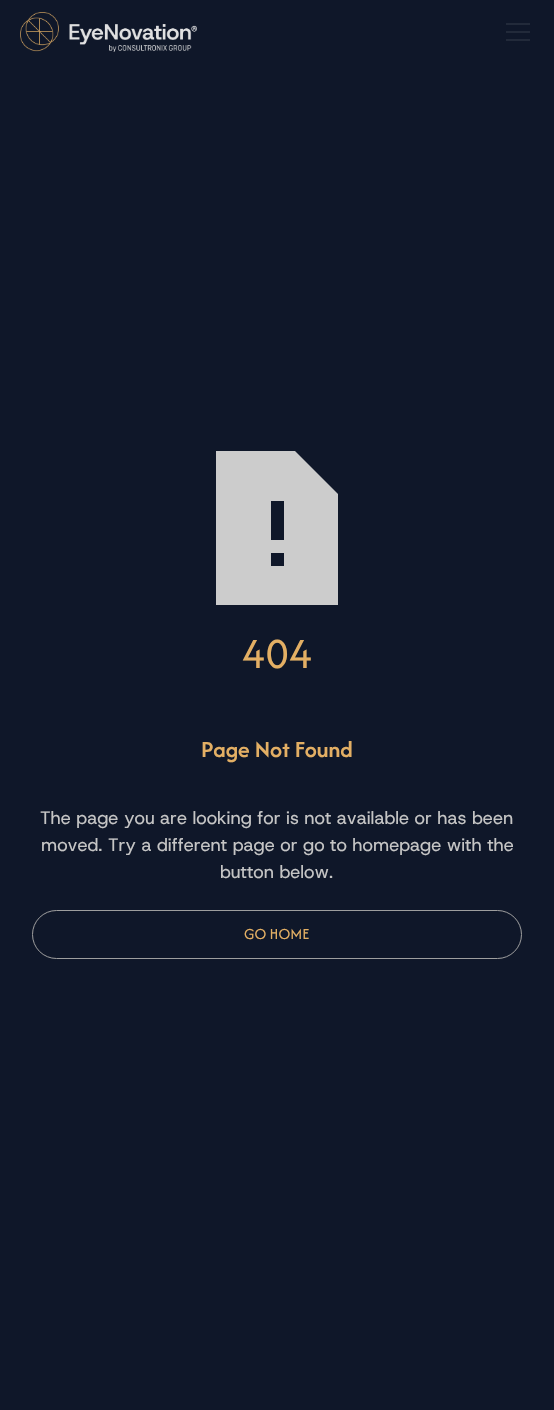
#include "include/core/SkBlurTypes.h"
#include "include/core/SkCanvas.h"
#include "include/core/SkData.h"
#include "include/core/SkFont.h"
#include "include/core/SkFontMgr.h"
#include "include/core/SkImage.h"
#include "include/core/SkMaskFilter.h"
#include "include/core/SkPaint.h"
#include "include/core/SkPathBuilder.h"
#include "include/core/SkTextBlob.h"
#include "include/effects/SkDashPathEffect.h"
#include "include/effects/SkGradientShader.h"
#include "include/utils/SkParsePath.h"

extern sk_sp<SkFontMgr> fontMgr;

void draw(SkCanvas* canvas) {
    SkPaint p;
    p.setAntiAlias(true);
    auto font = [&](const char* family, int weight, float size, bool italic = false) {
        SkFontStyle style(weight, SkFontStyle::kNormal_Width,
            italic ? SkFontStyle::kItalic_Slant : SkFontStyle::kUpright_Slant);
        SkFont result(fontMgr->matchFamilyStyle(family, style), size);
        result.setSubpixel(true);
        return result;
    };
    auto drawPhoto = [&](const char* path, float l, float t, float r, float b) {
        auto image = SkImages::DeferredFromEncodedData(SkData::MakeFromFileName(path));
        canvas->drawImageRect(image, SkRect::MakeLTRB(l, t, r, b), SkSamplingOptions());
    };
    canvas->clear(0xFF0F1729);
    drawPhoto("media/1.png", 20, 12, 197, 52);
    {
        const struct { float l, t, r, b; SkColor color; } items[] = {
            {506, 23, 530, 25, 0xFF222A3A},
            {506, 31, 530, 33, 0xFF222A3A},
            {506, 39, 530, 41, 0xFF222A3A},
        };
        for (auto [l, t, r, b, color] : items) {
            p.setColor(color);
            canvas->drawRect(SkRect::MakeLTRB(l, t, r, b), p);
        }
    }
    p.setColor(0xFFCCCCCC);
    canvas->drawPath(SkPathBuilder(SkPathFillType::kEvenOdd).moveTo(216, 451).lineTo(295, 451).lineTo(338, 494).lineTo(338, 605).lineTo(216, 605).close().moveTo(271, 501).lineTo(284, 501).lineTo(284, 540).lineTo(271, 540).close().moveTo(271, 553).lineTo(284, 553).lineTo(284, 566).lineTo(271, 566).close().detach(), p);
    auto font1 = font("Afacad Flux", 400, 45);
    p.setColor(0xFFE3AF64);
    canvas->drawString("404", 242, 668, font1, p);
    auto font2 = font("Afacad Flux", 600, 24);
    canvas->drawString("Page Not Found", 201, 757, font2, p);
    auto font3 = font("Host Grotesk", 400, 18);
    p.setColor(0xFFC5C5C5);
    {
        const struct { const char* s; float x, y; } items[] = {
            {"The page you are looking for is not available or has been", 40, 824},
            {"moved. Try a different page or go to homepage with the", 41, 851},
            {"button below.", 220, 878},
        };
        for (auto [s, x, y] : items) {
            canvas->drawString(s, x, y, font3, p);
        }
    }
    p.setStyle(SkPaint::kStroke_Style);
    p.setStrokeWidth(1);
    p.setColor(0xFF9E9E9E);
    canvas->drawRoundRect(SkRect::MakeLTRB(32.5f, 910.5f, 521.5f, 958.5f), 24, 24, p);
    auto font4 = font("Afacad Flux", 400, 16);
    p.setStyle(SkPaint::kFill_Style);
    p.setColor(0xFFE3AF64);
    canvas->drawString("GO HOME", 244, 939, font4, p);
}
